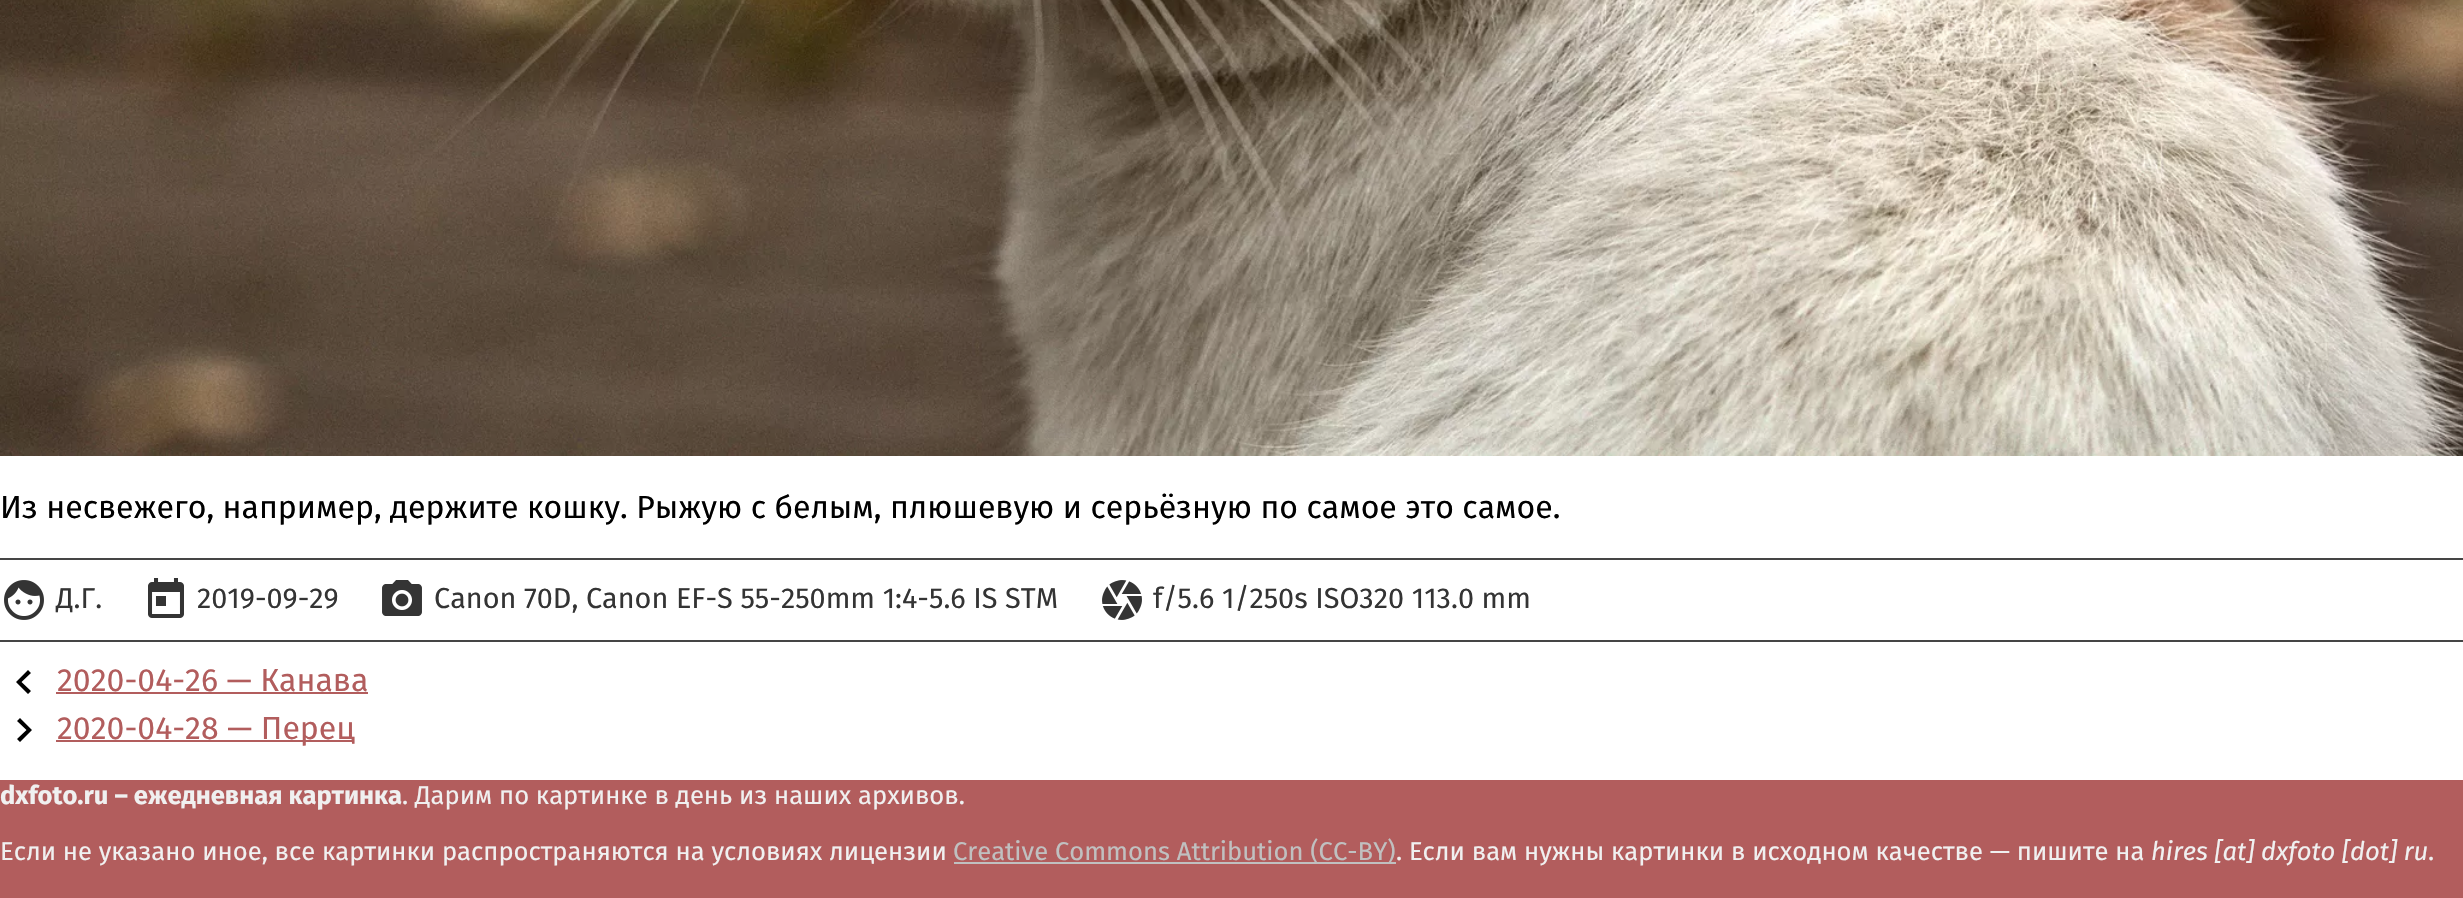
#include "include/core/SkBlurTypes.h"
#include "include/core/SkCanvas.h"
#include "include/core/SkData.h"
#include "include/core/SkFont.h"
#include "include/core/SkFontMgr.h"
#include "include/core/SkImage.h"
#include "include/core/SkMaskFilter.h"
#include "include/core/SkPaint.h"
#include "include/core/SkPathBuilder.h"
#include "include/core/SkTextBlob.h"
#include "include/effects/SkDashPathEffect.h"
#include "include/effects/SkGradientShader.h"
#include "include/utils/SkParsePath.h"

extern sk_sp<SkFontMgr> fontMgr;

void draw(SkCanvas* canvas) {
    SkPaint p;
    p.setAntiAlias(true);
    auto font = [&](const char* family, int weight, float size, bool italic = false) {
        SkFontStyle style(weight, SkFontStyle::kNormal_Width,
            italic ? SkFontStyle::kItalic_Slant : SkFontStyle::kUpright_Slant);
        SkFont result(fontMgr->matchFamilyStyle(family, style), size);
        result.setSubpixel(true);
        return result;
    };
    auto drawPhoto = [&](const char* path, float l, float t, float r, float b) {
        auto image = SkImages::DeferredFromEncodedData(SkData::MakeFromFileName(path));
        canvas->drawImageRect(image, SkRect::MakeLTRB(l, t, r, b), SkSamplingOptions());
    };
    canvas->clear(0xFFFFFFFF);
    drawPhoto("media/1.png", 0, 0, 2463, 456);
    auto font1 = font("Fira Sans", 400, 32);
    p.setColor(0xFF000000);
    canvas->drawString("Из несвежего, например, держите кошку. Рыжую с белым, плюшевую и серьёзную по самое это самое.", 0, 518, font1, p);
    p.setColor(0xFF454545);
    canvas->drawRect(SkRect::MakeLTRB(0, 558, 2463, 560), p);
    canvas->drawRect(SkRect::MakeLTRB(0, 640, 2463, 642), p);
    drawPhoto("media/2.png", 4, 580, 44, 620);
    auto font2 = font("Fira Sans", 400, 28.8f);
    p.setColor(0xFF343434);
    canvas->drawString("Д.Г.", 56, 608, font2, p);
    drawPhoto("media/3.png", 148, 578, 184, 618);
    canvas->drawString("2019-09-29", 197, 608, font2, p);
    drawPhoto("media/4.png", 382, 580, 422, 616);
    canvas->drawString("Canon 70D, Canon EF-S 55-250mm 1:4-5.6 IS STM", 434, 608, font2, p);
    drawPhoto("media/5.png", 1102, 580, 1142, 620);
    canvas->drawString("f/5.6 1/250s ISO320 113.0 mm", 1153, 608, font2, p);
    p.setColor(0xFF000000);
    canvas->drawPath(SkPathBuilder().moveTo(31, 673).lineTo(21.5f, 682).lineTo(31, 691).lineTo(28, 694).lineTo(16, 682).lineTo(28, 670).close().detach(), p);
    p.setColor(0xFFB25D5D);
    canvas->drawString("2020-04-26 — Канава", 57, 691, font1, p);
    canvas->drawRect(SkRect::MakeLTRB(56, 692, 368, 694), p);
    p.setColor(0xFF000000);
    canvas->drawPath(SkPathBuilder().moveTo(20, 718).lineTo(32, 730).lineTo(20, 742).lineTo(17, 739).lineTo(26.5f, 730).lineTo(17, 721).close().detach(), p);
    p.setColor(0xFFB25D5D);
    canvas->drawRect(SkRect::MakeLTRB(56, 740, 354, 742), p);
    canvas->drawString("2020-04-28 — Перец", 57, 739, font1, p);
    canvas->drawRect(SkRect::MakeLTRB(0, 780, 2463, 898), p);
    auto font3 = font("Fira Sans", 700, 25.6f);
    p.setColor(0xFFF0F0F0);
    canvas->drawString("dxfoto.ru – ежедневная картинка", 0, 804, font3, p);
    auto font4 = font("Fira Sans", 400, 25.6f);
    canvas->drawString(". Дарим по картинке в день из наших архивов.", 402, 804, font4, p);
    canvas->drawString("Если не указано иное, все картинки распространяются на условиях лицензии", 0, 860, font4, p);
    p.setColor(0xFFC0C0C0);
    canvas->drawRect(SkRect::MakeLTRB(954, 862, 1396, 864), p);
    canvas->drawString("Creative Commons Attribution (CC-BY)", 953, 860, font4, p);
    p.setColor(0xFFF0F0F0);
    canvas->drawString(". Если вам нужны картинки в исходном качестве — пишите на", 1396, 860, font4, p);
    auto font5 = font("Fira Sans", 400, 25.6f, true);
    canvas->drawString("hires [at] dxfoto [dot] ru", 2151, 860, font5, p);
    canvas->drawString(".", 2428, 860, font4, p);
}
